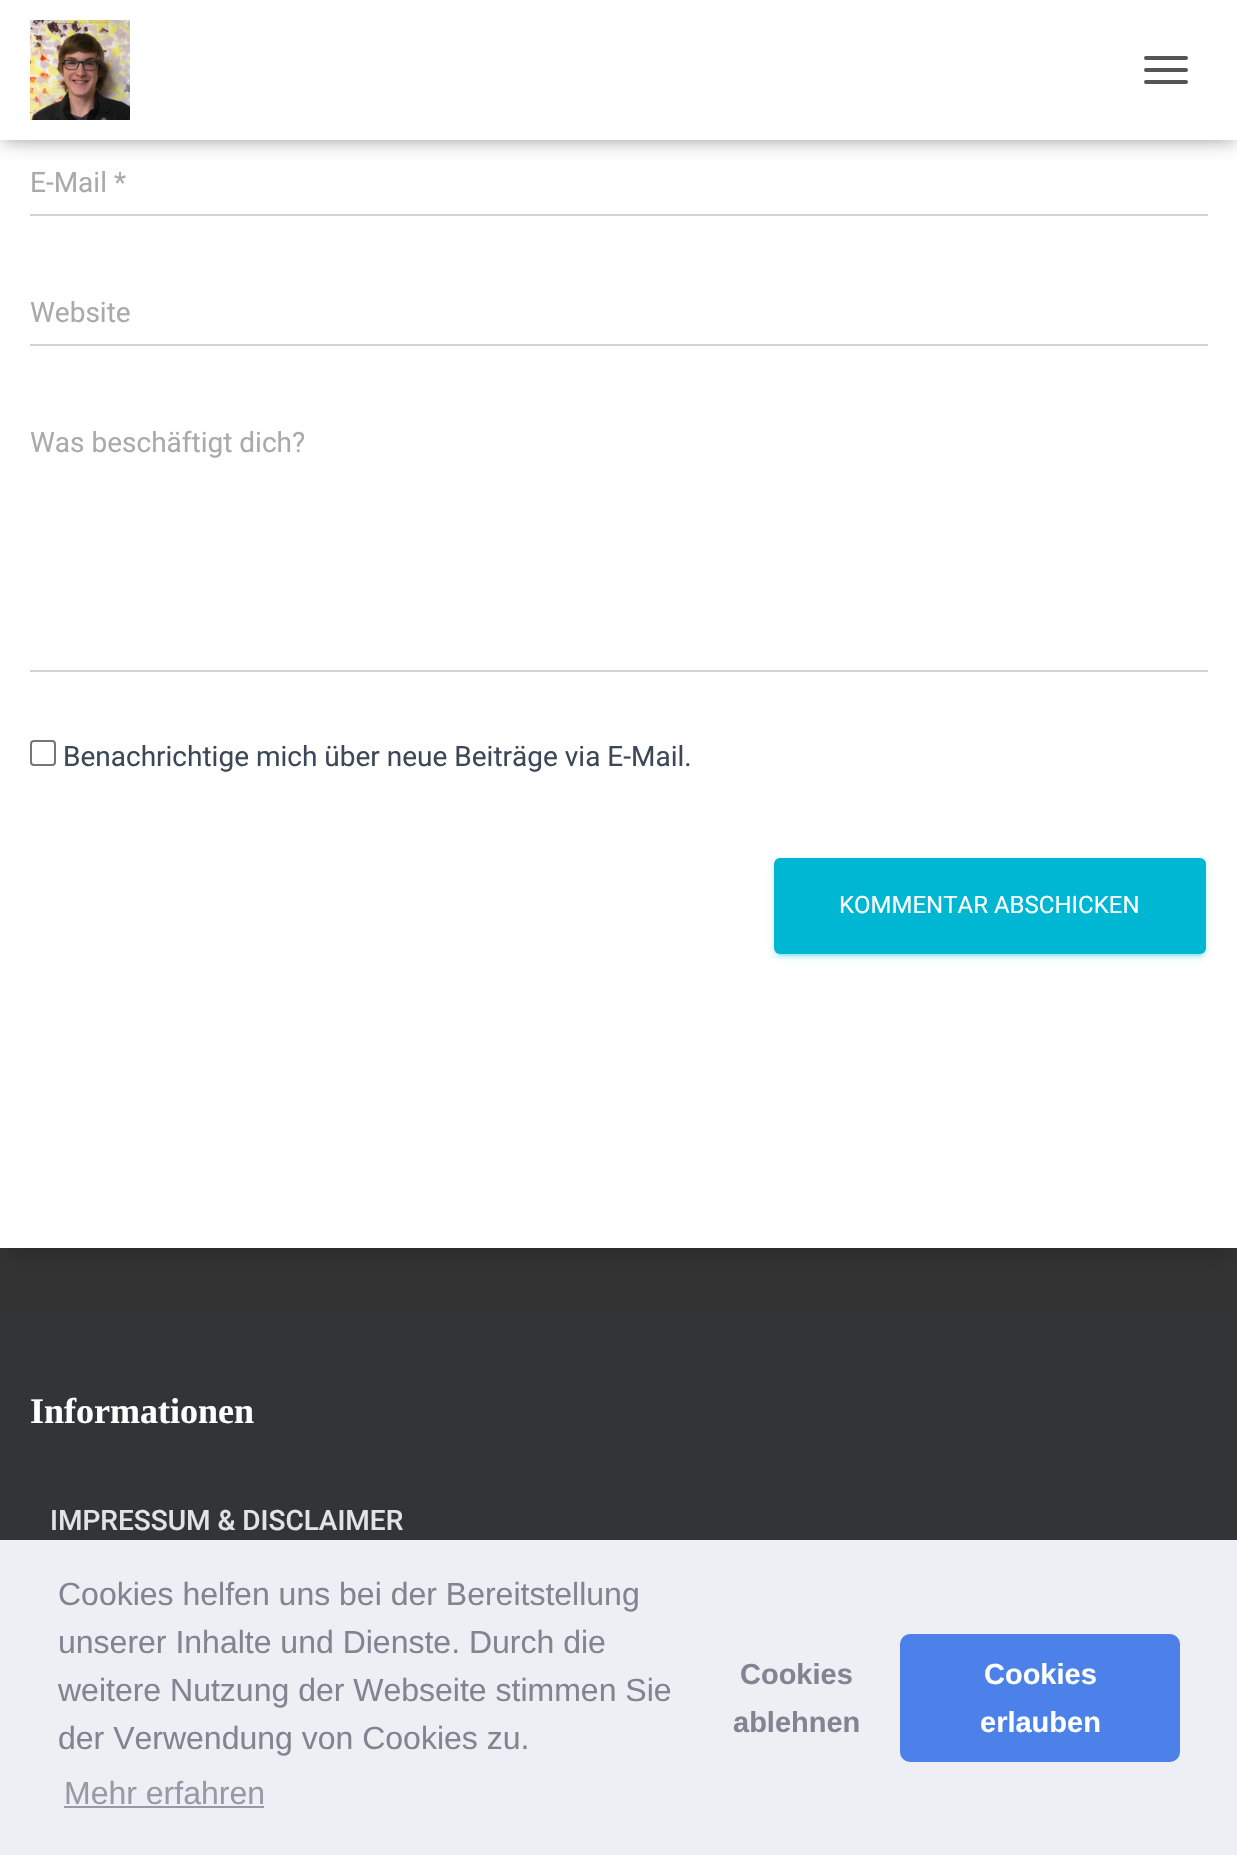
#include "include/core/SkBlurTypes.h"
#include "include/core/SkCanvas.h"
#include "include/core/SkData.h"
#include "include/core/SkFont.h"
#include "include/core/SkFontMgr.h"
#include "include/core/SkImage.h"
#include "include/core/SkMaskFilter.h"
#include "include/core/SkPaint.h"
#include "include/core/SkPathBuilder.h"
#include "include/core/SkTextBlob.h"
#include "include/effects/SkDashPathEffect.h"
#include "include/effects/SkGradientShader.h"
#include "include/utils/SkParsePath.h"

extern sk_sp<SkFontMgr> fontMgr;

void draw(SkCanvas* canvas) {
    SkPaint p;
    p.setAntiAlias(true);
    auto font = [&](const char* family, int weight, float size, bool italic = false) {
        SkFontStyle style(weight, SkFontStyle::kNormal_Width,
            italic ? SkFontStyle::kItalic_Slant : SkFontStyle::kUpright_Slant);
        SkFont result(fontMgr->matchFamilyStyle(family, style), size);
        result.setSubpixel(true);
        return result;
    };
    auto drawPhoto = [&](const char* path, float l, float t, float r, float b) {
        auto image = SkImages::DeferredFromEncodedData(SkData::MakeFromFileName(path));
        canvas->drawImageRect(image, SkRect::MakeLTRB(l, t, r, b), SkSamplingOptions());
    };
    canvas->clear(0xFF333333);
    p.setColor(0x33000000);
    p.setMaskFilter(SkMaskFilter::MakeBlur(kNormal_SkBlurStyle, 10));
    canvas->drawRect(SkRect::MakeLTRB(10, -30, 1228, 1254), p);
    p.setMaskFilter(nullptr);
    p.setColor(0xFFFFFFFF);
    canvas->drawRect(SkRect::MakeLTRB(0, 140, 1237, 1248), p);
    p.setColor(0x1A000000);
    p.setMaskFilter(SkMaskFilter::MakeBlur(kNormal_SkBlurStyle, 5));
    canvas->drawRect(SkRect::MakeLTRB(4, 12, 1234, 144), p);
    p.setMaskFilter(nullptr);
    p.setColor(0x1F000000);
    p.setMaskFilter(SkMaskFilter::MakeBlur(kNormal_SkBlurStyle, 10));
    canvas->drawRect(SkRect::MakeLTRB(0, 2, 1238, 142), p);
    p.setMaskFilter(nullptr);
    p.setColor(0x6B000000);
    p.setMaskFilter(SkMaskFilter::MakeBlur(kNormal_SkBlurStyle, 10));
    canvas->drawRect(SkRect::MakeLTRB(12, 14, 1226, 130), p);
    p.setMaskFilter(nullptr);
    p.setColor(0xFFFFFFFF);
    canvas->drawRect(SkRect::MakeLTRB(0, 0, 1237, 140), p);
    drawPhoto("media/1.png", 30, 20, 130, 120);
    p.setColor(0xFF555555);
    canvas->drawRoundRect(SkRect::MakeLTRB(1144, 56, 1188, 60), 2, 2, p);
    canvas->drawRoundRect(SkRect::MakeLTRB(1144, 68, 1188, 72), 2, 2, p);
    canvas->drawRoundRect(SkRect::MakeLTRB(1144, 80, 1188, 84), 2, 2, p);
    auto font1 = font("Roboto", 400, 28);
    p.setColor(0xFFAAAAAA);
    canvas->drawString("E-Mail *", 30, 192, font1, p);
    p.setColor(0xFFD2D2D2);
    canvas->drawRect(SkRect::MakeLTRB(30, 214, 1208, 216), p);
    p.setColor(0xFFAAAAAA);
    canvas->drawString("Website", 30, 322, font1, p);
    p.setColor(0xFFD2D2D2);
    canvas->drawRect(SkRect::MakeLTRB(30, 344, 1208, 346), p);
    p.setColor(0xFFAAAAAA);
    canvas->drawString("Was beschäftigt dich?", 30, 452, font1, p);
    p.setColor(0xFFD2D2D2);
    canvas->drawRect(SkRect::MakeLTRB(30, 670, 1208, 672), p);
    p.setStyle(SkPaint::kStroke_Style);
    p.setStrokeWidth(2);
    p.setColor(0xFF767676);
    canvas->drawRoundRect(SkRect::MakeLTRB(31, 741, 55, 765), 3, 3, p);
    p.setStyle(SkPaint::kFill_Style);
    p.setColor(0xFF3C4858);
    canvas->drawString("Benachrichtige mich über neue Beiträge via E-Mail.", 63, 766, font1, p);
    p.setColor(0x1F00B7D3);
    p.setMaskFilter(SkMaskFilter::MakeBlur(kNormal_SkBlurStyle, 5));
    canvas->drawRoundRect(SkRect::MakeLTRB(774, 860, 1206, 956), 6, 6, p);
    p.setMaskFilter(nullptr);
    p.setColor(0x3300B7D3);
    p.setMaskFilter(SkMaskFilter::MakeBlur(kNormal_SkBlurStyle, 1));
    canvas->drawRoundRect(SkRect::MakeLTRB(778, 868, 1202, 956), 2, 2, p);
    p.setMaskFilter(nullptr);
    p.setColor(0x2400B7D3);
    p.setMaskFilter(SkMaskFilter::MakeBlur(kNormal_SkBlurStyle, 2));
    canvas->drawRoundRect(SkRect::MakeLTRB(774, 862, 1206, 958), 6, 6, p);
    p.setMaskFilter(nullptr);
    p.setColor(0xFF00B7D3);
    canvas->drawRoundRect(SkRect::MakeLTRB(774, 858, 1206, 954), 6, 6, p);
    auto font2 = font("Roboto", 400, 24);
    p.setColor(0xFFFFFFFF);
    canvas->drawString("KOMMENTAR ABSCHICKEN", 839, 913, font2, p);
    p.setColor(0xFF323437);
    canvas->drawRect(SkRect::MakeLTRB(0, 1308, 1237, 1540), p);
    auto font3 = font("Liberation Serif", 700, 36);
    p.setColor(0xFFFFFFFF);
    canvas->drawString("Informationen", 30, 1423, font3, p);
    auto font4 = font("Roboto", 500, 28);
    p.setColor(0xFFE2E3E3);
    canvas->drawString("IMPRESSUM & DISCLAIMER", 50, 1530, font4, p);
    p.setColor(0xFFEDEFF5);
    canvas->drawRect(SkRect::MakeLTRB(0, 1540, 1237, 1855), p);
    auto font5 = font("Liberation Sans", 400, 32);
    p.setColor(0xFF838391);
    {
        const struct { const char* s; float x, y; } items[] = {
            {"Cookies helfen uns bei der Bereitstellung", 58, 1605},
            {"unserer Inhalte und Dienste. Durch die", 58, 1653},
            {"weitere Nutzung der Webseite stimmen Sie", 58, 1701},
            {"der Verwendung von Cookies zu.", 58, 1749},
        };
        for (auto [s, x, y] : items) {
            canvas->drawString(s, x, y, font5, p);
        }
    }
    p.setColor(0xFF9899A5);
    canvas->drawString("Mehr erfahren", 64, 1804, font5, p);
    canvas->drawRect(SkRect::MakeLTRB(64, 1806, 264, 1808), p);
    auto font6 = font("Liberation Sans", 700, 29);
    p.setColor(0xFF838391);
    canvas->drawString("Cookies", 740, 1684, font6, p);
    canvas->drawString("ablehnen", 733, 1732, font6, p);
    p.setColor(0xFF4B81E8);
    canvas->drawRoundRect(SkRect::MakeLTRB(900, 1634, 1180, 1762), 10, 10, p);
    p.setColor(0xFFFFFFFF);
    canvas->drawString("Cookies", 984, 1684, font6, p);
    canvas->drawString("erlauben", 980, 1732, font6, p);
}
